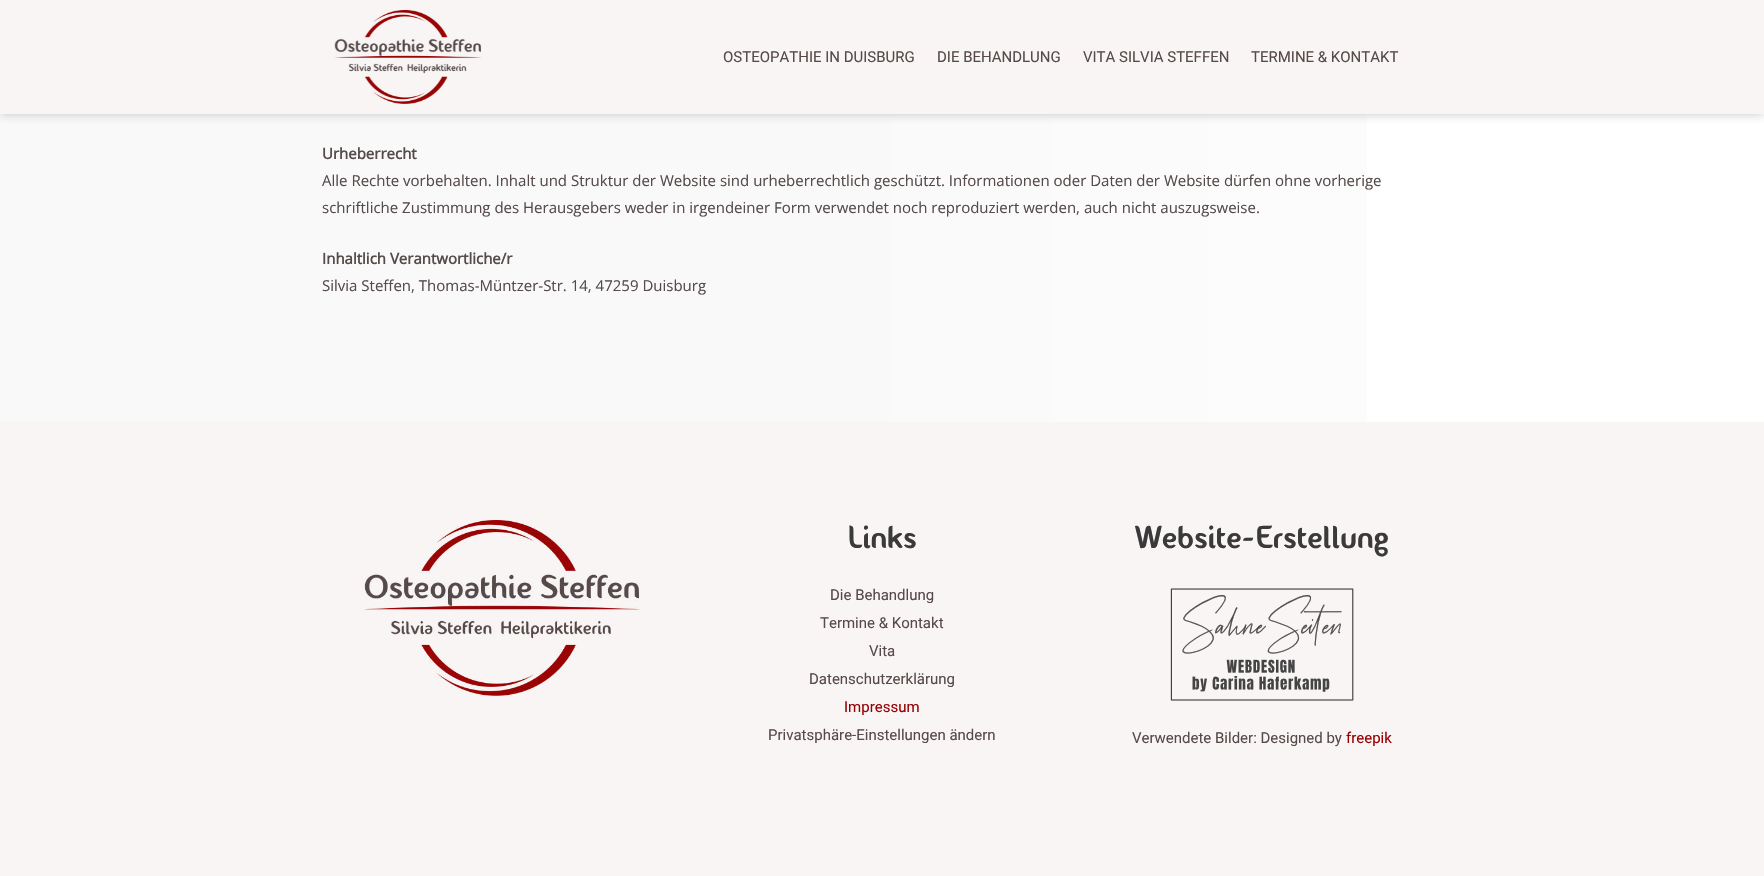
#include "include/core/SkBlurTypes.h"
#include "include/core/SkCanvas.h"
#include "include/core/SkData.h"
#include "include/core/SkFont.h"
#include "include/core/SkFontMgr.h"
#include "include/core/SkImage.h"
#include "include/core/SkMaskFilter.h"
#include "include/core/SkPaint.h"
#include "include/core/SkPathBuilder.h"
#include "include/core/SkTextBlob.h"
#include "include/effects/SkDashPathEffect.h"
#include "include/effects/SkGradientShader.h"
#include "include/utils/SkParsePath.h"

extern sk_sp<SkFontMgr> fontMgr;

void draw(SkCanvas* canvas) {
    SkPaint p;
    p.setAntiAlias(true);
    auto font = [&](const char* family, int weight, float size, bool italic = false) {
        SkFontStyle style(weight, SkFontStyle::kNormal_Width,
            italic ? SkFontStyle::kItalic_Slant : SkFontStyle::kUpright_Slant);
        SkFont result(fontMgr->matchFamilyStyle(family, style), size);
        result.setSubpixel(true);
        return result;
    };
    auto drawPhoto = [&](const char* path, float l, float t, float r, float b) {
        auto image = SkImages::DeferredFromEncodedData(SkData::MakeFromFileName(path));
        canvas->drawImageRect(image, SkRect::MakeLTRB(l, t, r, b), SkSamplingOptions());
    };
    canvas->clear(0xFFFFFFFF);
    {
        const SkColor colors[] = {0xFFFFFFFF, 0xFFF9F9F9};
        const float stops[] = {0, 0.54f};
        const SkPoint ends[] = {{1764, -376}, {0, -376}};
        p.setShader(SkGradientShader::MakeLinear(ends, colors, stops, 2, SkTileMode::kClamp));
        p.setAlpha(255);
    }
    canvas->drawRect(SkRect::MakeLTRB(0, 114, 1367, 422), p);
    p.setShader(nullptr);
    p.setColor(0x808C8B8B);
    p.setMaskFilter(SkMaskFilter::MakeBlur(kNormal_SkBlurStyle, 5));
    canvas->drawRect(SkRect::MakeLTRB(0, 0, 1764, 114), p);
    p.setMaskFilter(nullptr);
    p.setColor(0xFFF9F5F4);
    canvas->drawRect(SkRect::MakeLTRB(0, 0, 1764, 114), p);
    drawPhoto("media/1.png", 334, 10, 482, 104);
    auto font1 = font("Roboto", 400, 15);
    p.setColor(0xFF564A4A);
    {
        const struct { const char* s; float x, y; } items[] = {
            {"OSTEOPATHIE IN DUISBURG", 723, 62},
            {"DIE BEHANDLUNG", 937, 62},
            {"VITA SILVIA STEFFEN", 1083, 62},
            {"TERMINE & KONTAKT", 1251, 62},
        };
        for (auto [s, x, y] : items) {
            canvas->drawString(s, x, y, font1, p);
        }
    }
    auto font2 = font("Open Sans", 700, 15);
    canvas->drawString("Urheberrecht", 322, 159, font2, p);
    auto font3 = font("Open Sans", 400, 15);
    canvas->drawString("Alle Rechte vorbehalten. Inhalt und Struktur der Website sind urheberrechtlich geschützt. Informationen oder Daten der Website dürfen ohne vorherige", 322, 186, font3, p);
    canvas->drawString("schriftliche Zustimmung des Herausgebers weder in irgendeiner Form verwendet noch reproduziert werden, auch nicht auszugsweise.", 322, 213, font3, p);
    canvas->drawString("Inhaltlich Verantwortliche/r", 322, 264, font2, p);
    canvas->drawString("Silvia Steffen, Thomas-Müntzer-Str. 14, 47259 Duisburg", 322, 291, font3, p);
    p.setColor(0xFFF9F5F4);
    canvas->drawRect(SkRect::MakeLTRB(0, 422, 1764, 876), p);
    drawPhoto("media/2.png", 363, 520, 640, 696);
    auto font4 = font("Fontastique", 400, 32);
    p.setColor(0xFF3A3A3A);
    canvas->drawString("Links", 848, 548, font4, p);
    p.setColor(0xFF564A4A);
    {
        const struct { const char* s; float x, y; } items[] = {
            {"Die Behandlung", 830, 600},
            {"Termine & Kontakt", 820, 628},
            {"Vita", 869, 656},
            {"Datenschutzerklärung", 809, 684},
        };
        for (auto [s, x, y] : items) {
            canvas->drawString(s, x, y, font1, p);
        }
    }
    p.setColor(0xFF970204);
    canvas->drawString("Impressum", 844, 712, font1, p);
    p.setColor(0xFF564A4A);
    canvas->drawString("Privatsphäre-Einstellungen ändern", 768, 740, font1, p);
    p.setColor(0xFF3A3A3A);
    canvas->drawString("Website-Erstellung", 1135, 548, font4, p);
    drawPhoto("media/3.png", 1170, 588, 1354, 701);
    p.setColor(0xFF564A4A);
    canvas->drawString("Verwendete Bilder: Designed by", 1132, 743, font1, p);
    p.setColor(0xFF970204);
    canvas->drawString("freepik", 1346, 743, font1, p);
}
